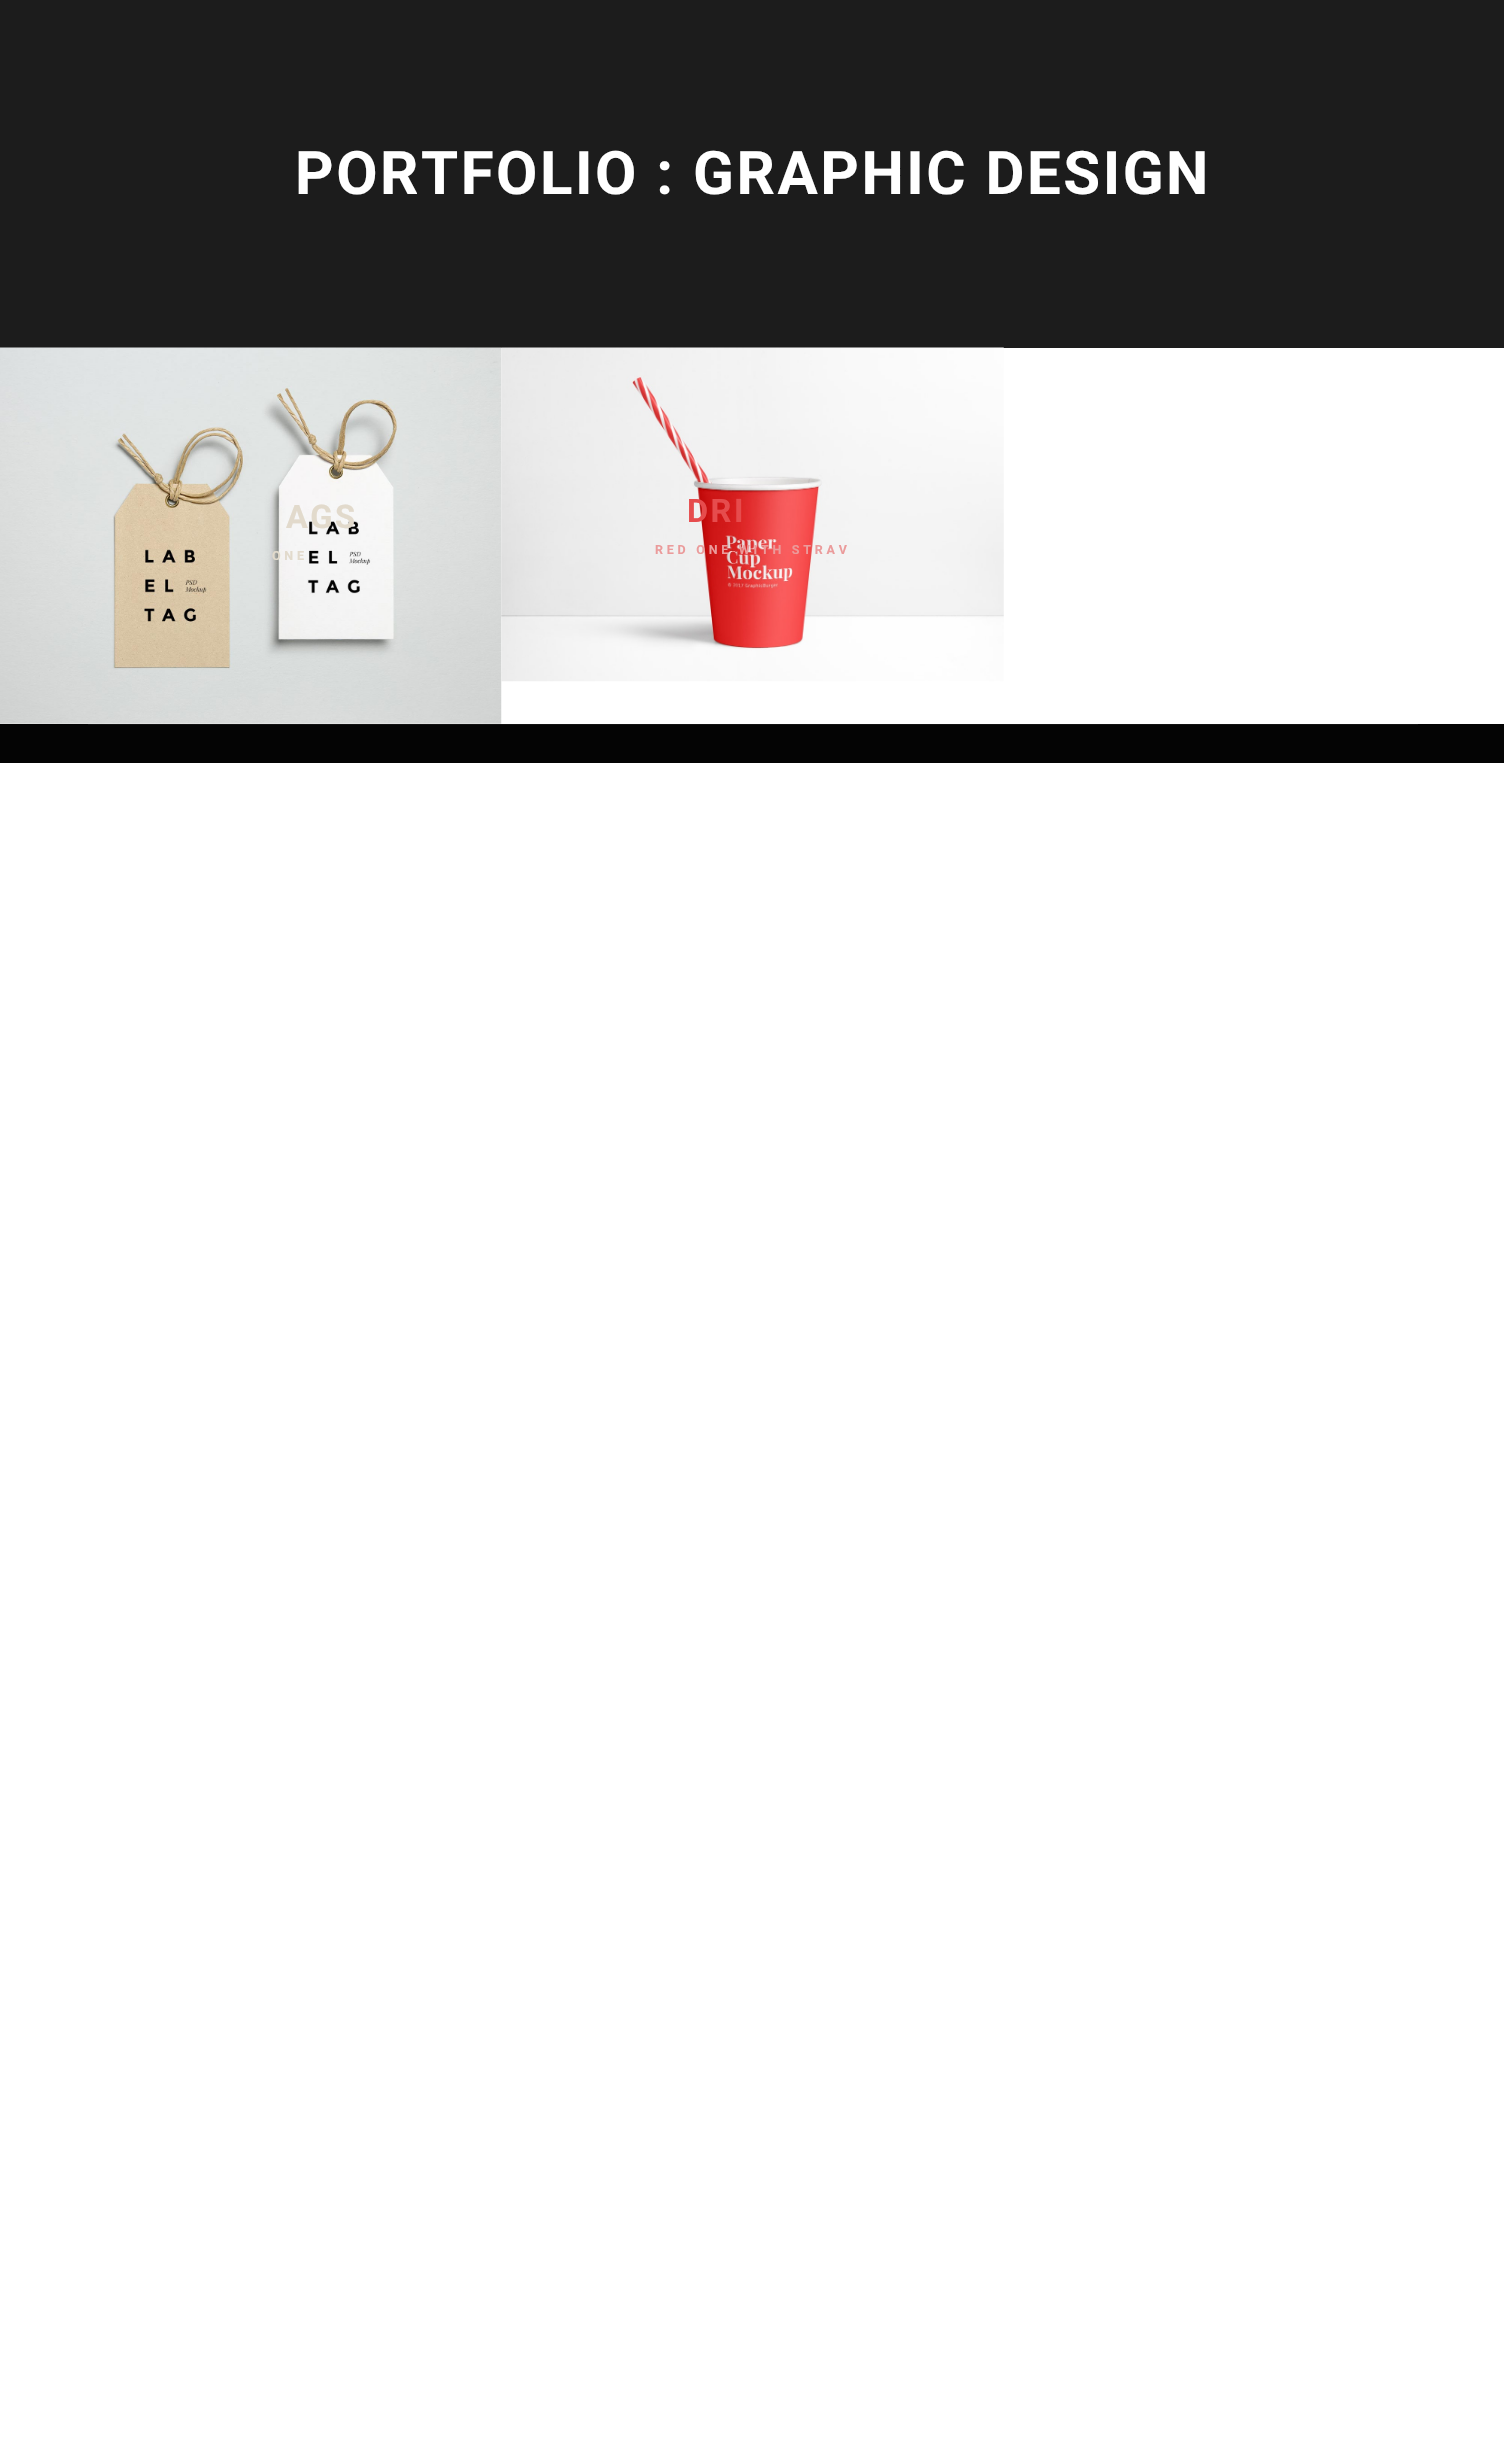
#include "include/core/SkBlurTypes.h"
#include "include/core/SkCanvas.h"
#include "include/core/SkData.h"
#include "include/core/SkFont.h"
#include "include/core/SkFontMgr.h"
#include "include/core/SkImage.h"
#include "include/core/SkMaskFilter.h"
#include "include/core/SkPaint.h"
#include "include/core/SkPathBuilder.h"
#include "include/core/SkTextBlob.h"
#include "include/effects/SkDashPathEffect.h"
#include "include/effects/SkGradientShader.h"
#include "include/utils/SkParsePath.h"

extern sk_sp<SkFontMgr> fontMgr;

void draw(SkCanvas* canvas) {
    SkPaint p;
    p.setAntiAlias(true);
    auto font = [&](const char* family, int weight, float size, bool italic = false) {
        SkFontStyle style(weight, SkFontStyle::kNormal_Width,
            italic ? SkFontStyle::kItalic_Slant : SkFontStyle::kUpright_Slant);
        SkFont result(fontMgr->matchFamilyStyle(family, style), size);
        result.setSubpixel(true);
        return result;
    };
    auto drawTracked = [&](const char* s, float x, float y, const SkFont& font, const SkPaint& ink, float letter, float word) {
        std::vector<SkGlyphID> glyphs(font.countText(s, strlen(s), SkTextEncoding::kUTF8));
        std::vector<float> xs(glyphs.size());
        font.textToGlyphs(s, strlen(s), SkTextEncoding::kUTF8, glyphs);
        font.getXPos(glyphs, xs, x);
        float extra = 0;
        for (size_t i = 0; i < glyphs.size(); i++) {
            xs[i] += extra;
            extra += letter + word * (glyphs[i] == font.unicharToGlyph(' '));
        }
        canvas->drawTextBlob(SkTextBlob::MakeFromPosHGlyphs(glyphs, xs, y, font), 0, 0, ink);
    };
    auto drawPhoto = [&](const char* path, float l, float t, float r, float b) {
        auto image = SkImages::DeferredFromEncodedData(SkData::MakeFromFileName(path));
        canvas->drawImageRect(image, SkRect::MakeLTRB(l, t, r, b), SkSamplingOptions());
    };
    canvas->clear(0xFFFFFFFF);
    p.setColor(0xFF1C1C1C);
    canvas->drawRect(SkRect::MakeLTRB(0, 0, 1504, 348), p);
    auto font1 = font("Roboto", 700, 60);
    p.setColor(0xFFFFFFFF);
    drawTracked("PORTFOLIO : GRAPHIC DESIGN", 295, 194, font1, p, 2.5f, 0);
    drawPhoto("media/1.png", 0, 347, 502, 724);
    auto font2 = font("Roboto", 700, 32.5f);
    p.setColor(0xFFE2DACC);
    drawTracked("AGS", 286, 528, font2, p, 2.5f, 0);
    auto font3 = font("Roboto", 700, 12.5f);
    drawTracked("ONE", 272, 560, font3, p, 3.75f, 0);
    drawPhoto("media/2.png", 501, 347, 1004, 682);
    p.setColor(0xFFE64C4D);
    drawTracked("DRI", 687, 522, font2, p, 2.5f, 0);
    p.setColor(0xFFEB9B9B);
    drawTracked("RED ONE WITH STRAV", 655, 554, font3, p, 3.75f, 0);
    p.setColor(0xFF040404);
    canvas->drawRect(SkRect::MakeLTRB(0, 724, 1504, 763), p);
    p.setColor(0xFF131313);
    canvas->drawRect(SkRect::MakeLTRB(88, 724, 1418, 725), p);
}
